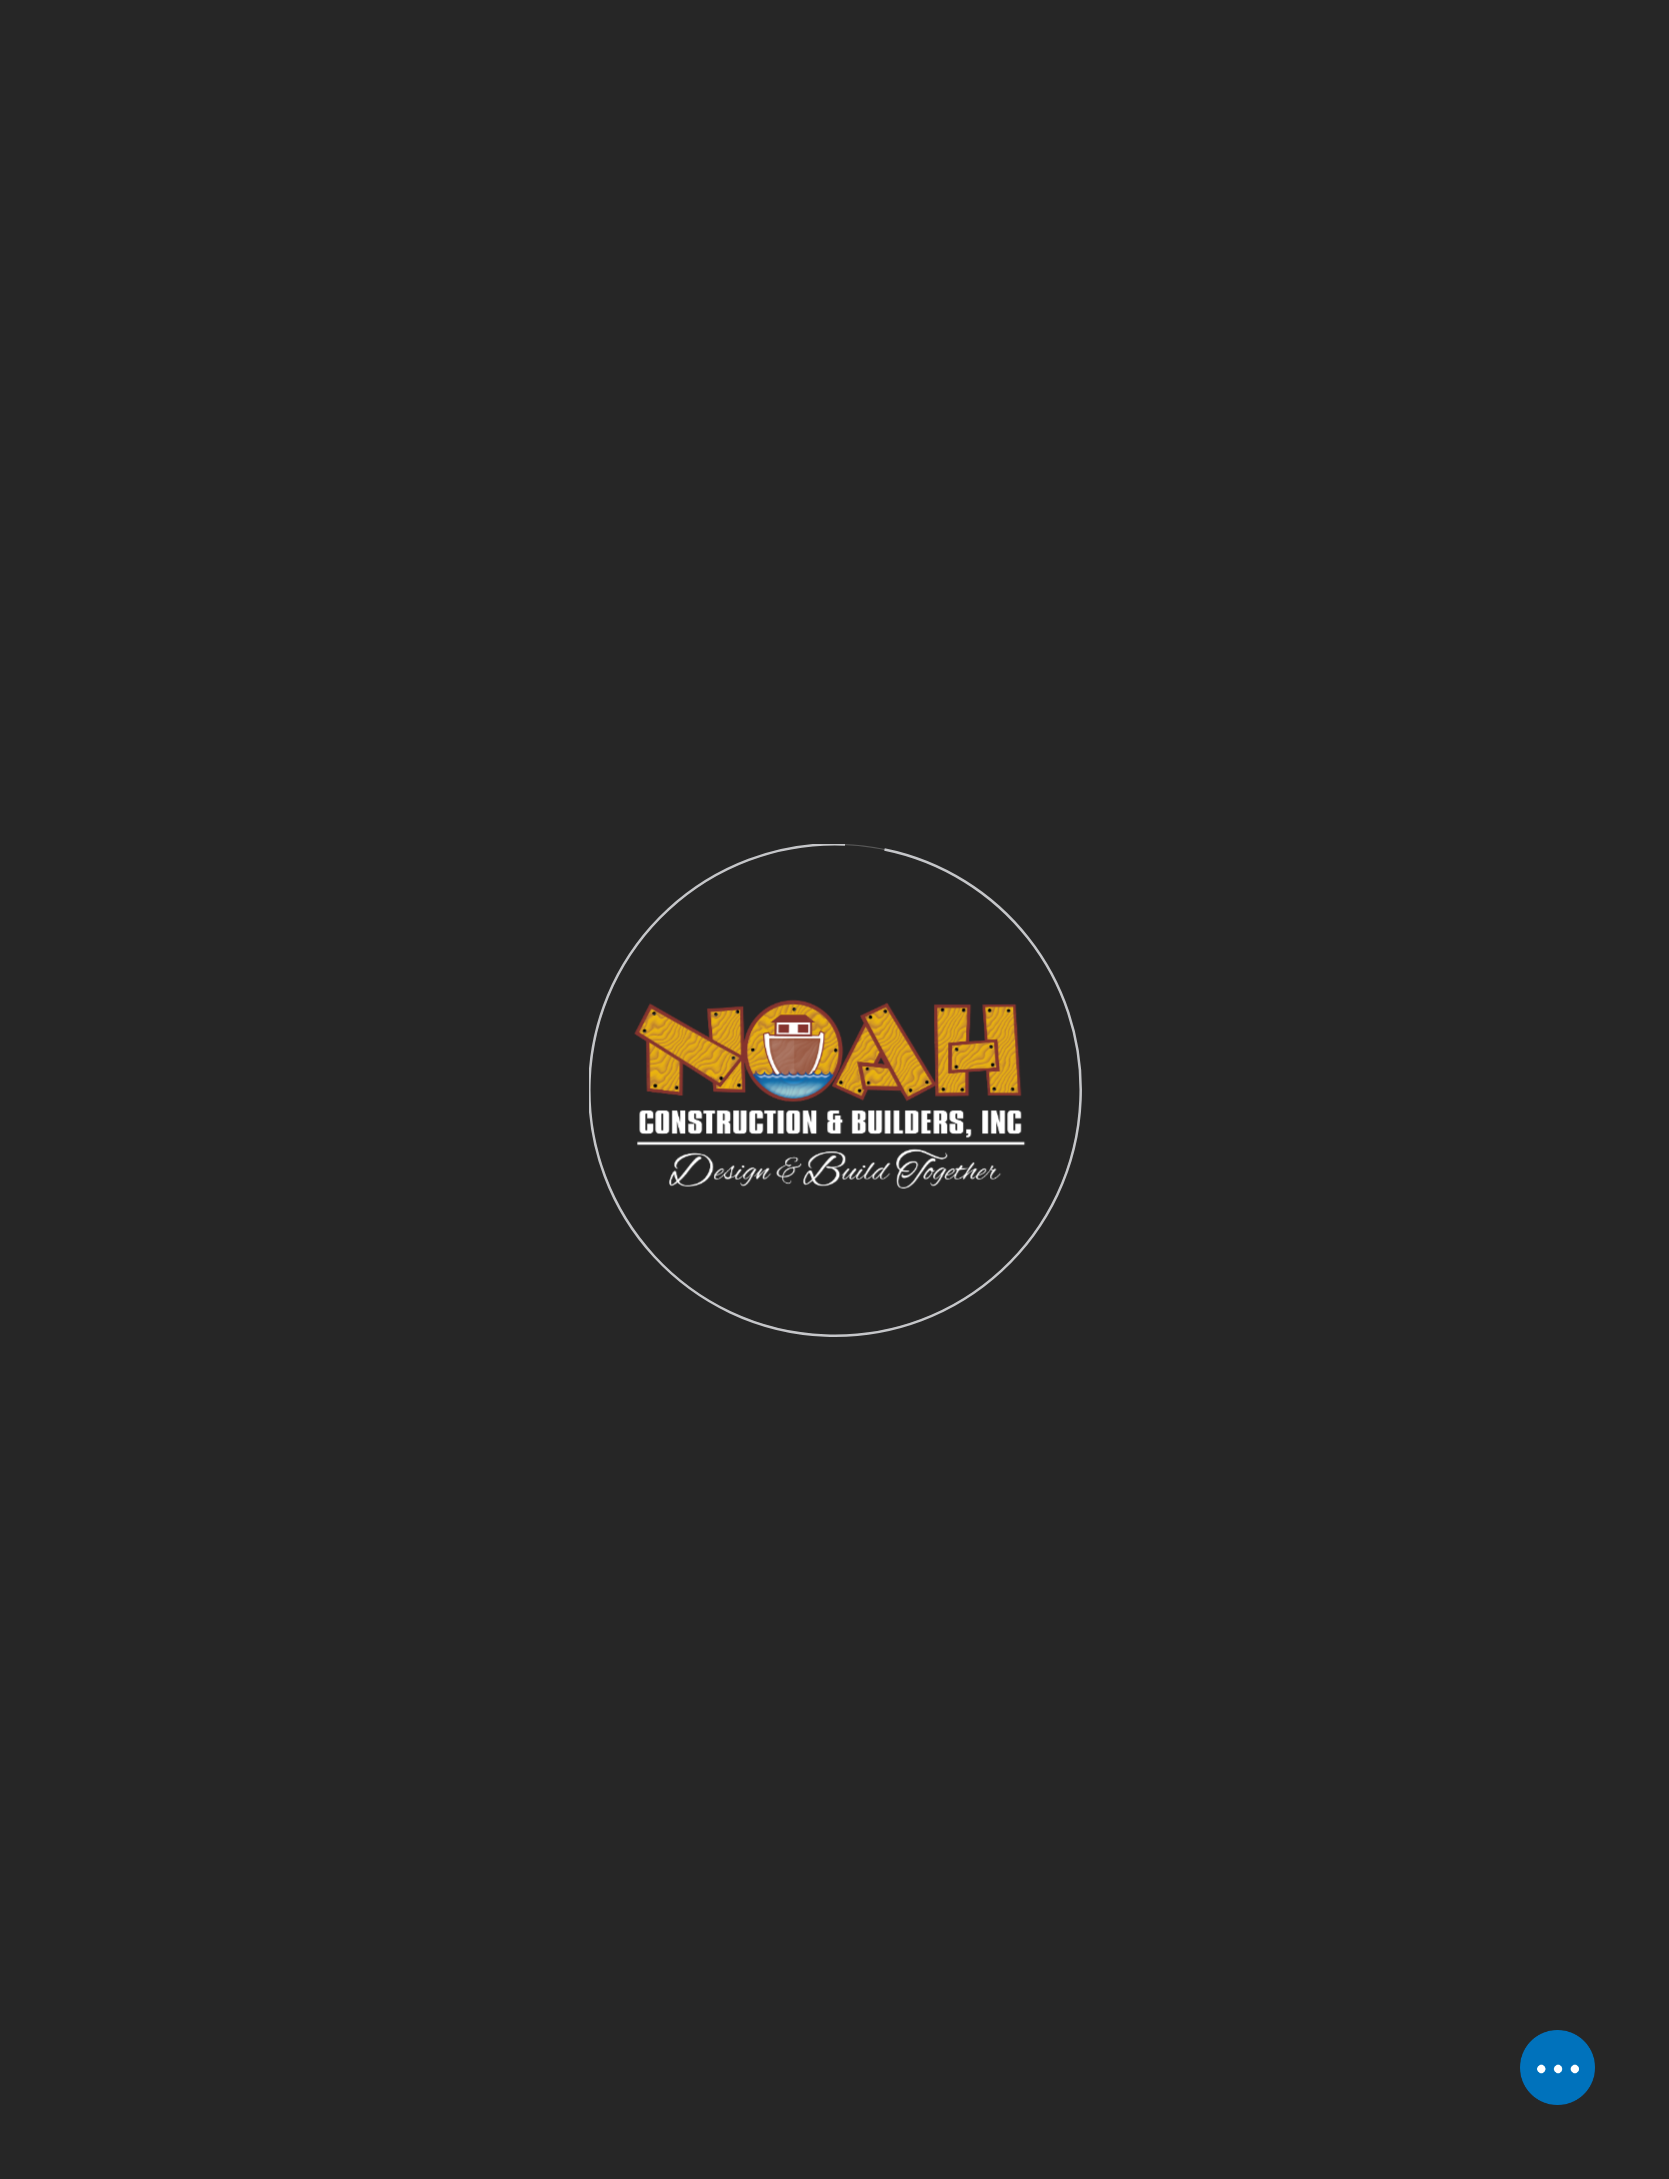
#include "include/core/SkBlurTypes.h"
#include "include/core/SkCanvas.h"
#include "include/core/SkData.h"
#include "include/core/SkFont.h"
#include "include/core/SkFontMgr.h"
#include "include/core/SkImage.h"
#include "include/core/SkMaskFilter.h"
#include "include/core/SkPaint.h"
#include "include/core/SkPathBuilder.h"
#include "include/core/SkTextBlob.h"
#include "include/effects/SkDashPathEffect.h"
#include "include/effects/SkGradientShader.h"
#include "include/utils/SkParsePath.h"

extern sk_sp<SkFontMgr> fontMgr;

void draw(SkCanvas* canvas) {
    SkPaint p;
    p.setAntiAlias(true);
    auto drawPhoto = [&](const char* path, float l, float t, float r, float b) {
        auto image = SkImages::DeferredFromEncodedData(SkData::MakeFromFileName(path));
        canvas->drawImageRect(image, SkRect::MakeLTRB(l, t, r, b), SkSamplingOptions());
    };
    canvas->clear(0xFF262626);
    drawPhoto("media/1.png", 634, 999, 1026, 1189);
    canvas->save();
    canvas->clipRect(SkRect::MakeLTRB(589, 844, 1083, 1338));
    p.setStyle(SkPaint::kStroke_Style);
    p.setStrokeWidth(1.2f);
    p.setColor(0xFF575757);
    canvas->drawCircle(835, 1090, 245.5f, p);
    p.setStrokeWidth(2.5f);
    p.setColor(0xFFC5C6C9);
    canvas->drawPath(SkPathBuilder().moveTo(884.5f, 849.5f).cubicTo(1000.5f, 873, 1085.5f, 978, 1080.5f, 1100).cubicTo(1075, 1235.5f, 960.5f, 1341, 825, 1335.5f).cubicTo(689.5f, 1330, 584, 1215.5f, 589.5f, 1080).cubicTo(595, 944.5f, 709.5f, 839, 845, 844.5f).detach(), p);
    canvas->restore();
    drawPhoto("media/2.png", 1520, 2030, 1595, 2105);
}
